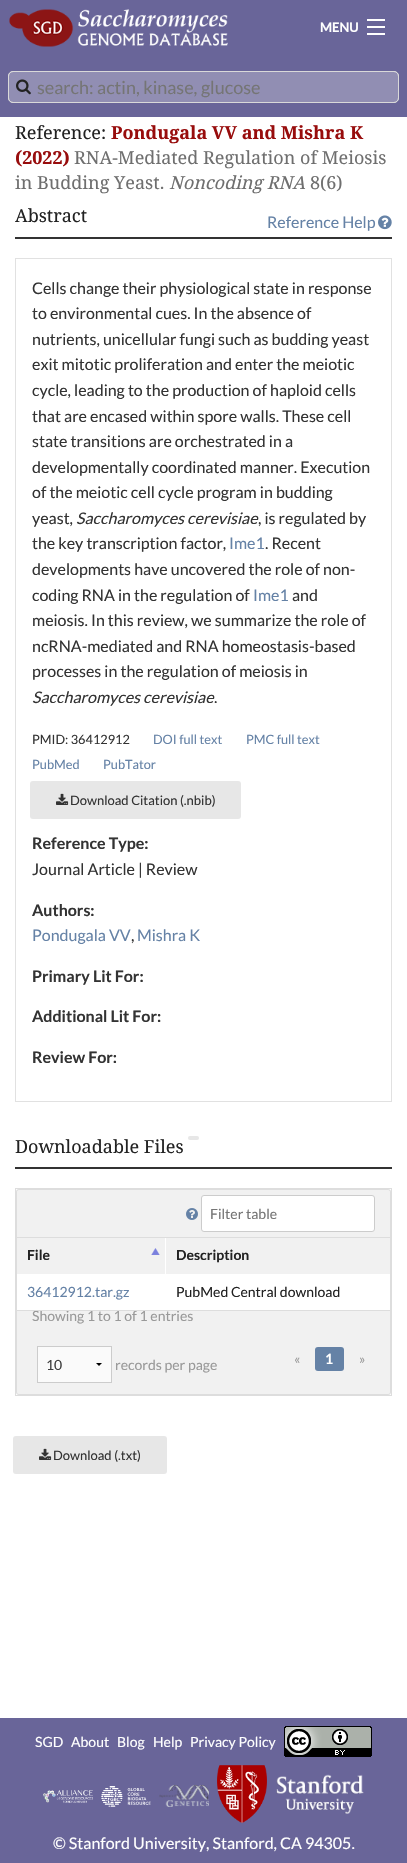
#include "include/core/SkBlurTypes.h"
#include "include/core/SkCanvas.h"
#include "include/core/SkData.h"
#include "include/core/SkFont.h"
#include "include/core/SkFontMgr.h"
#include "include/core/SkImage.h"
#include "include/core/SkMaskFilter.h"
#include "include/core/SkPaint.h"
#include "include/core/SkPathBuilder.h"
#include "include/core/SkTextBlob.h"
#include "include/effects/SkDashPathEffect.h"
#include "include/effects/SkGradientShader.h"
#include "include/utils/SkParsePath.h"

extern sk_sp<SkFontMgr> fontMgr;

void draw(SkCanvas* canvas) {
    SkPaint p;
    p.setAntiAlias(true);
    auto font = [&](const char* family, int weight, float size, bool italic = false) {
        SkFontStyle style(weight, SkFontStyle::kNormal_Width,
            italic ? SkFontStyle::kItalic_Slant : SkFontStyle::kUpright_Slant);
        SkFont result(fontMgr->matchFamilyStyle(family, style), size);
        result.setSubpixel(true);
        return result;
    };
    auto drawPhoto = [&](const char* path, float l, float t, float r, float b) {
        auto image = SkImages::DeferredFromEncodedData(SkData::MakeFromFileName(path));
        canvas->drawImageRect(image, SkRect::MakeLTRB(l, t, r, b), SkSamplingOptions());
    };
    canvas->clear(0xFFFFFFFF);
    p.setColor(0xFF696599);
    canvas->drawRect(SkRect::MakeLTRB(0, 0, 407, 117), p);
    drawPhoto("media/1.png", 9, 9, 228, 47);
    auto font1 = font("Lato", 700, 13);
    p.setColor(0xFFFFFFFF);
    canvas->drawString("MENU", 320, 32, font1, p);
    {
        const struct { float l, t, r, b; SkColor color; } items[] = {
            {367, 33, 385, 35, 0xFFFFFFFF},
            {367, 26, 385, 28, 0xFFFFFFFF},
            {367, 19, 385, 21, 0xFFFFFFFF},
        };
        for (auto [l, t, r, b, color] : items) {
            p.setColor(color);
            canvas->drawRect(SkRect::MakeLTRB(l, t, r, b), p);
        }
    }
    p.setColor(0xFF918EB3);
    canvas->drawRoundRect(SkRect::MakeLTRB(8.5f, 71.5f, 398.5f, 102.5f), 4.5f, 4.5f, p);
    p.setStyle(SkPaint::kStroke_Style);
    p.setStrokeWidth(1);
    p.setColor(0xFFD9D9D9);
    canvas->drawRoundRect(SkRect::MakeLTRB(8.5f, 71.5f, 398.5f, 102.5f), 4.5f, 4.5f, p);
    canvas->drawRoundRect(SkRect::MakeLTRB(8.5f, 71.5f, 398.5f, 102.5f), 4.5f, 4.5f, p);
    drawPhoto("media/2.png", 16, 79, 31, 95);
    auto font2 = font("Lato", 400, 18);
    p.setStyle(SkPaint::kFill_Style);
    p.setColor(0xFF757575);
    canvas->drawString("search: actin, kinase, glucose", 37, 94, font2, p);
    auto font3 = font("Droid Serif", 400, 18);
    p.setColor(0xFF222222);
    canvas->drawString("Reference:", 15, 139, font3, p);
    auto font4 = font("Droid Serif", 700, 18);
    p.setColor(0xFF980D0D);
    canvas->drawString("Pondugala VV and Mishra K", 111, 139, font4, p);
    canvas->drawString("(2022)", 15, 164, font4, p);
    p.setColor(0xFF6F6F6F);
    canvas->drawString("RNA-Mediated Regulation of Meiosis", 74, 164, font3, p);
    canvas->drawString("in Budding Yeast.", 15, 189, font3, p);
    auto font5 = font("Droid Serif", 400, 18, true);
    canvas->drawString("Noncoding RNA", 169, 189, font5, p);
    canvas->drawString("8(6)", 310, 189, font3, p);
    p.setColor(0xFF222222);
    canvas->drawString("Abstract", 15, 222, font3, p);
    auto font6 = font("Lato", 400, 16);
    p.setColor(0xFF6582A6);
    canvas->drawString("Reference Help", 267, 228, font6, p);
    drawPhoto("media/3.png", 378, 215, 392, 230);
    p.setColor(0xFF333333);
    canvas->drawRect(SkRect::MakeLTRB(15, 237, 392, 239), p);
    p.setStyle(SkPaint::kStroke_Style);
    p.setColor(0xFFE1E1E1);
    canvas->drawRect(SkRect::MakeLTRB(15.5f, 258.5f, 391.5f, 1101.5f), p);
    p.setStyle(SkPaint::kFill_Style);
    p.setColor(0xFF333333);
    {
        const struct { const char* s; float x, y; } items[] = {
            {"Cells change their physiological state in response", 32, 294},
            {"to environmental cues. In the absence of", 32, 319},
            {"nutrients, unicellular fungi such as budding yeast", 32, 345},
            {"exit mitotic proliferation and enter the meiotic", 32, 370},
            {"cycle, leading to the production of haploid cells", 32, 396},
            {"that are encased within spore walls. These cell", 32, 422},
            {"state transitions are orchestrated in a", 32, 447},
            {"developmentally coordinated manner. Execution", 32, 473},
            {"of the meiotic cell cycle program in budding", 32, 498},
            {"yeast,", 32, 524},
        };
        for (auto [s, x, y] : items) {
            canvas->drawString(s, x, y, font6, p);
        }
    }
    auto font7 = font("Lato", 400, 16, true);
    canvas->drawString("Saccharomyces cerevisiae", 76, 524, font7, p);
    canvas->drawString(", is regulated by", 258, 524, font6, p);
    canvas->drawString("the key transcription factor,", 32, 549, font6, p);
    p.setColor(0xFF6582A6);
    canvas->drawString("Ime1", 229, 549, font6, p);
    p.setColor(0xFF333333);
    {
        const struct { const char* s; float x, y; } items[] = {
            {". Recent", 265, 549},
            {"developments have uncovered the role of non-", 32, 575},
            {"coding RNA in the regulation of", 32, 601},
        };
        for (auto [s, x, y] : items) {
            canvas->drawString(s, x, y, font6, p);
        }
    }
    p.setColor(0xFF6582A6);
    canvas->drawString("Ime1", 253, 601, font6, p);
    p.setColor(0xFF333333);
    {
        const struct { const char* s; float x, y; } items[] = {
            {"and", 292, 601},
            {"meiosis. In this review, we summarize the role of", 32, 626},
            {"ncRNA-mediated and RNA homeostasis-based", 32, 652},
            {"processes in the regulation of meiosis in", 32, 677},
        };
        for (auto [s, x, y] : items) {
            canvas->drawString(s, x, y, font6, p);
        }
    }
    canvas->drawString("Saccharomyces cerevisiae", 32, 703, font7, p);
    canvas->drawString(".", 214, 703, font6, p);
    auto font8 = font("Lato", 400, 12.75f);
    canvas->drawString("PMID: 36412912", 32, 744, font8, p);
    p.setColor(0xFF6582A6);
    {
        const struct { const char* s; float x, y; } items[] = {
            {"DOI full text", 153, 744},
            {"PMC full text", 246, 744},
            {"PubMed", 32, 769},
            {"PubTator", 103, 769},
        };
        for (auto [s, x, y] : items) {
            canvas->drawString(s, x, y, font8, p);
        }
    }
    p.setColor(0xFFE7E7E7);
    canvas->drawRoundRect(SkRect::MakeLTRB(30, 781, 241, 819), 3, 3, p);
    drawPhoto("media/4.png", 56, 793, 69, 805);
    auto font9 = font("Lato", 400, 13);
    p.setColor(0xFF333333);
    canvas->drawString("Download Citation (.nbib)", 70, 805, font9, p);
    auto font10 = font("Lato", 700, 16);
    canvas->drawString("Reference Type:", 32, 849, font10, p);
    canvas->drawString("Journal Article | Review", 32, 875, font6, p);
    canvas->drawString("Authors:", 32, 916, font10, p);
    p.setColor(0xFF6582A6);
    canvas->drawString("Pondugala VV", 32, 941, font6, p);
    p.setColor(0xFF333333);
    canvas->drawString(",", 131, 941, font6, p);
    p.setColor(0xFF6582A6);
    canvas->drawString("Mishra K", 137, 941, font6, p);
    p.setColor(0xFF333333);
    {
        const struct { const char* s; float x, y; } items[] = {
            {"Primary Lit For:", 32, 982},
            {"Additional Lit For:", 32, 1022},
            {"Review For:", 32, 1063},
        };
        for (auto [s, x, y] : items) {
            canvas->drawString(s, x, y, font10, p);
        }
    }
    p.setColor(0xFFE7E7E7);
    canvas->drawRoundRect(SkRect::MakeLTRB(188, 1136, 199, 1140), 2, 2, p);
    p.setColor(0xFF222222);
    canvas->drawString("Downloadable Files", 15, 1153, font3, p);
    p.setColor(0xFF333333);
    canvas->drawRect(SkRect::MakeLTRB(15, 1167, 392, 1169), p);
    p.setStyle(SkPaint::kStroke_Style);
    p.setColor(0xFFDDDDDD);
    canvas->drawRect(SkRect::MakeLTRB(15.5f, 1188.5f, 391.5f, 1395.5f), p);
    p.setStyle(SkPaint::kFill_Style);
    p.setColor(0xFFF1F1F1);
    canvas->drawPath(SkPathBuilder().moveTo(19, 1190).lineTo(388, 1190).cubicTo(389, 1190, 390, 1191, 390, 1192).lineTo(390, 1237).lineTo(17, 1237).lineTo(17, 1192).cubicTo(17, 1191, 18, 1190, 19, 1190).close().detach(), p);
    p.setColor(0xFFDDDDDD);
    canvas->drawPath(SkPathBuilder(SkPathFillType::kEvenOdd).moveTo(19, 1189).lineTo(388, 1189).cubicTo(390, 1189, 391, 1190, 391, 1192).lineTo(391, 1237).lineTo(16, 1237).lineTo(16, 1192).cubicTo(16, 1190, 17, 1189, 19, 1189).close().moveTo(19, 1190).lineTo(388, 1190).cubicTo(389, 1190, 390, 1191, 390, 1192).lineTo(390, 1237).lineTo(17, 1237).lineTo(17, 1192).cubicTo(17, 1191, 18, 1190, 19, 1190).close().detach(), p);
    drawPhoto("media/5.png", 186, 1208, 198, 1220);
    p.setColor(0xFFFFFFFF);
    canvas->drawRoundRect(SkRect::MakeLTRB(201.5f, 1195.5f, 374.5f, 1231.5f), 2.5f, 2.5f, p);
    p.setStyle(SkPaint::kStroke_Style);
    p.setColor(0xFFCCCCCC);
    canvas->drawRoundRect(SkRect::MakeLTRB(201.5f, 1195.5f, 374.5f, 1231.5f), 2.5f, 2.5f, p);
    auto font11 = font("Lato", 400, 14);
    p.setStyle(SkPaint::kFill_Style);
    p.setColor(0xFF757575);
    canvas->drawString("Filter table", 210, 1219, font11, p);
    p.setStyle(SkPaint::kStroke_Style);
    p.setColor(0xFFDDDDDD);
    canvas->drawRect(SkRect::MakeLTRB(16.5f, 1237.5f, 390.5f, 1310.5f), p);
    p.setStyle(SkPaint::kFill_Style);
    p.setColor(0xFFF1F1F1);
    canvas->drawRect(SkRect::MakeLTRB(17, 1238, 390, 1274), p);
    drawPhoto("media/6.png", 151, 1248, 160, 1255);
    p.setColor(0xFFFFFFFF);
    canvas->drawRect(SkRect::MakeLTRB(165, 1238, 166, 1274), p);
    auto font12 = font("Lato", 700, 14);
    p.setColor(0xFF222222);
    canvas->drawString("File", 27, 1260, font12, p);
    canvas->drawString("Description", 176, 1260, font12, p);
    p.setColor(0xFF6582A6);
    canvas->drawString("36412912.tar.gz", 27, 1297, font11, p);
    p.setColor(0xFF222222);
    canvas->drawString("PubMed Central download", 176, 1297, font11, p);
    p.setColor(0xFFF1F1F1);
    canvas->drawPath(SkPathBuilder().moveTo(17, 1311).lineTo(390, 1311).lineTo(390, 1392).cubicTo(390, 1393, 389, 1394, 388, 1394).lineTo(19, 1394).cubicTo(18, 1394, 17, 1393, 17, 1392).close().detach(), p);
    p.setColor(0xFFDDDDDD);
    canvas->drawPath(SkPathBuilder(SkPathFillType::kEvenOdd).moveTo(16, 1311).lineTo(391, 1311).lineTo(391, 1392).cubicTo(391, 1394, 390, 1395, 388, 1395).lineTo(19, 1395).cubicTo(17, 1395, 16, 1394, 16, 1392).close().moveTo(17, 1311).lineTo(390, 1311).lineTo(390, 1392).cubicTo(390, 1393, 389, 1394, 388, 1394).lineTo(19, 1394).cubicTo(18, 1394, 17, 1393, 17, 1392).close().detach(), p);
    canvas->save();
    canvas->clipPath(SkPathBuilder().moveTo(17, 1311).lineTo(390, 1311).lineTo(390, 1392).cubicTo(390, 1393, 389, 1394, 388, 1394).lineTo(19, 1394).cubicTo(18, 1394, 17, 1393, 17, 1392).close().detach(), true);
    p.setColor(0xFF999999);
    canvas->drawString("Showing 1 to 1 of 1 entries", 32, 1321, font11, p);
    canvas->restore();
    p.setColor(0xFFFAFAFA);
    canvas->drawRect(SkRect::MakeLTRB(38, 1347, 111, 1382), p);
    p.setColor(0xFF000000);
    canvas->drawPath(SkPathBuilder().moveTo(102, 1363).lineTo(99, 1366).lineTo(96, 1363).close().detach(), p);
    p.setStyle(SkPaint::kStroke_Style);
    p.setColor(0xFFCCCCCC);
    canvas->drawRect(SkRect::MakeLTRB(37.5f, 1346.5f, 111.5f, 1382.5f), p);
    p.setStyle(SkPaint::kFill_Style);
    p.setColor(0xFF3F3F3F);
    canvas->drawString("10", 46, 1370, font11, p);
    p.setColor(0xFF999999);
    canvas->drawString("records per page", 115, 1370, font11, p);
    canvas->drawString("«", 294, 1364, font11, p);
    p.setColor(0xFF6582A6);
    canvas->drawRoundRect(SkRect::MakeLTRB(315, 1347, 344, 1371), 3, 3, p);
    p.setColor(0xFFFFFFFF);
    canvas->drawString("1", 325, 1364, font12, p);
    p.setColor(0xFF999999);
    canvas->drawString("»", 359, 1364, font11, p);
    p.setColor(0xFFE7E7E7);
    canvas->drawRoundRect(SkRect::MakeLTRB(13, 1436, 167, 1474), 3, 3, p);
    drawPhoto("media/4.png", 39, 1448, 52, 1460);
    p.setColor(0xFF333333);
    canvas->drawString("Download (.txt)", 53, 1460, font9, p);
    p.setColor(0xFF696599);
    canvas->drawRect(SkRect::MakeLTRB(0, 1718, 407, 1863), p);
    p.setColor(0xFFFFFFFF);
    {
        const struct { const char* s; float x, y; } items[] = {
            {"SGD", 35, 1747},
            {"About", 71, 1747},
            {"Blog", 117, 1747},
            {"Help", 153, 1747},
            {"Privacy Policy", 190, 1747},
        };
        for (auto [s, x, y] : items) {
            canvas->drawString(s, x, y, font11, p);
        }
    }
    drawPhoto("media/7.png", 284, 1726, 372, 1757);
    drawPhoto("media/8.png", 43, 1790, 93, 1803);
    drawPhoto("media/9.png", 101, 1786, 151, 1807);
    drawPhoto("media/10.png", 159, 1785, 209, 1807);
    drawPhoto("media/11.png", 217, 1765, 267, 1823);
    drawPhoto("media/12.png", 276, 1774, 364, 1814);
    canvas->drawString("© Stanford University, Stanford, CA 94305.", 53, 1849, font6, p);
}
